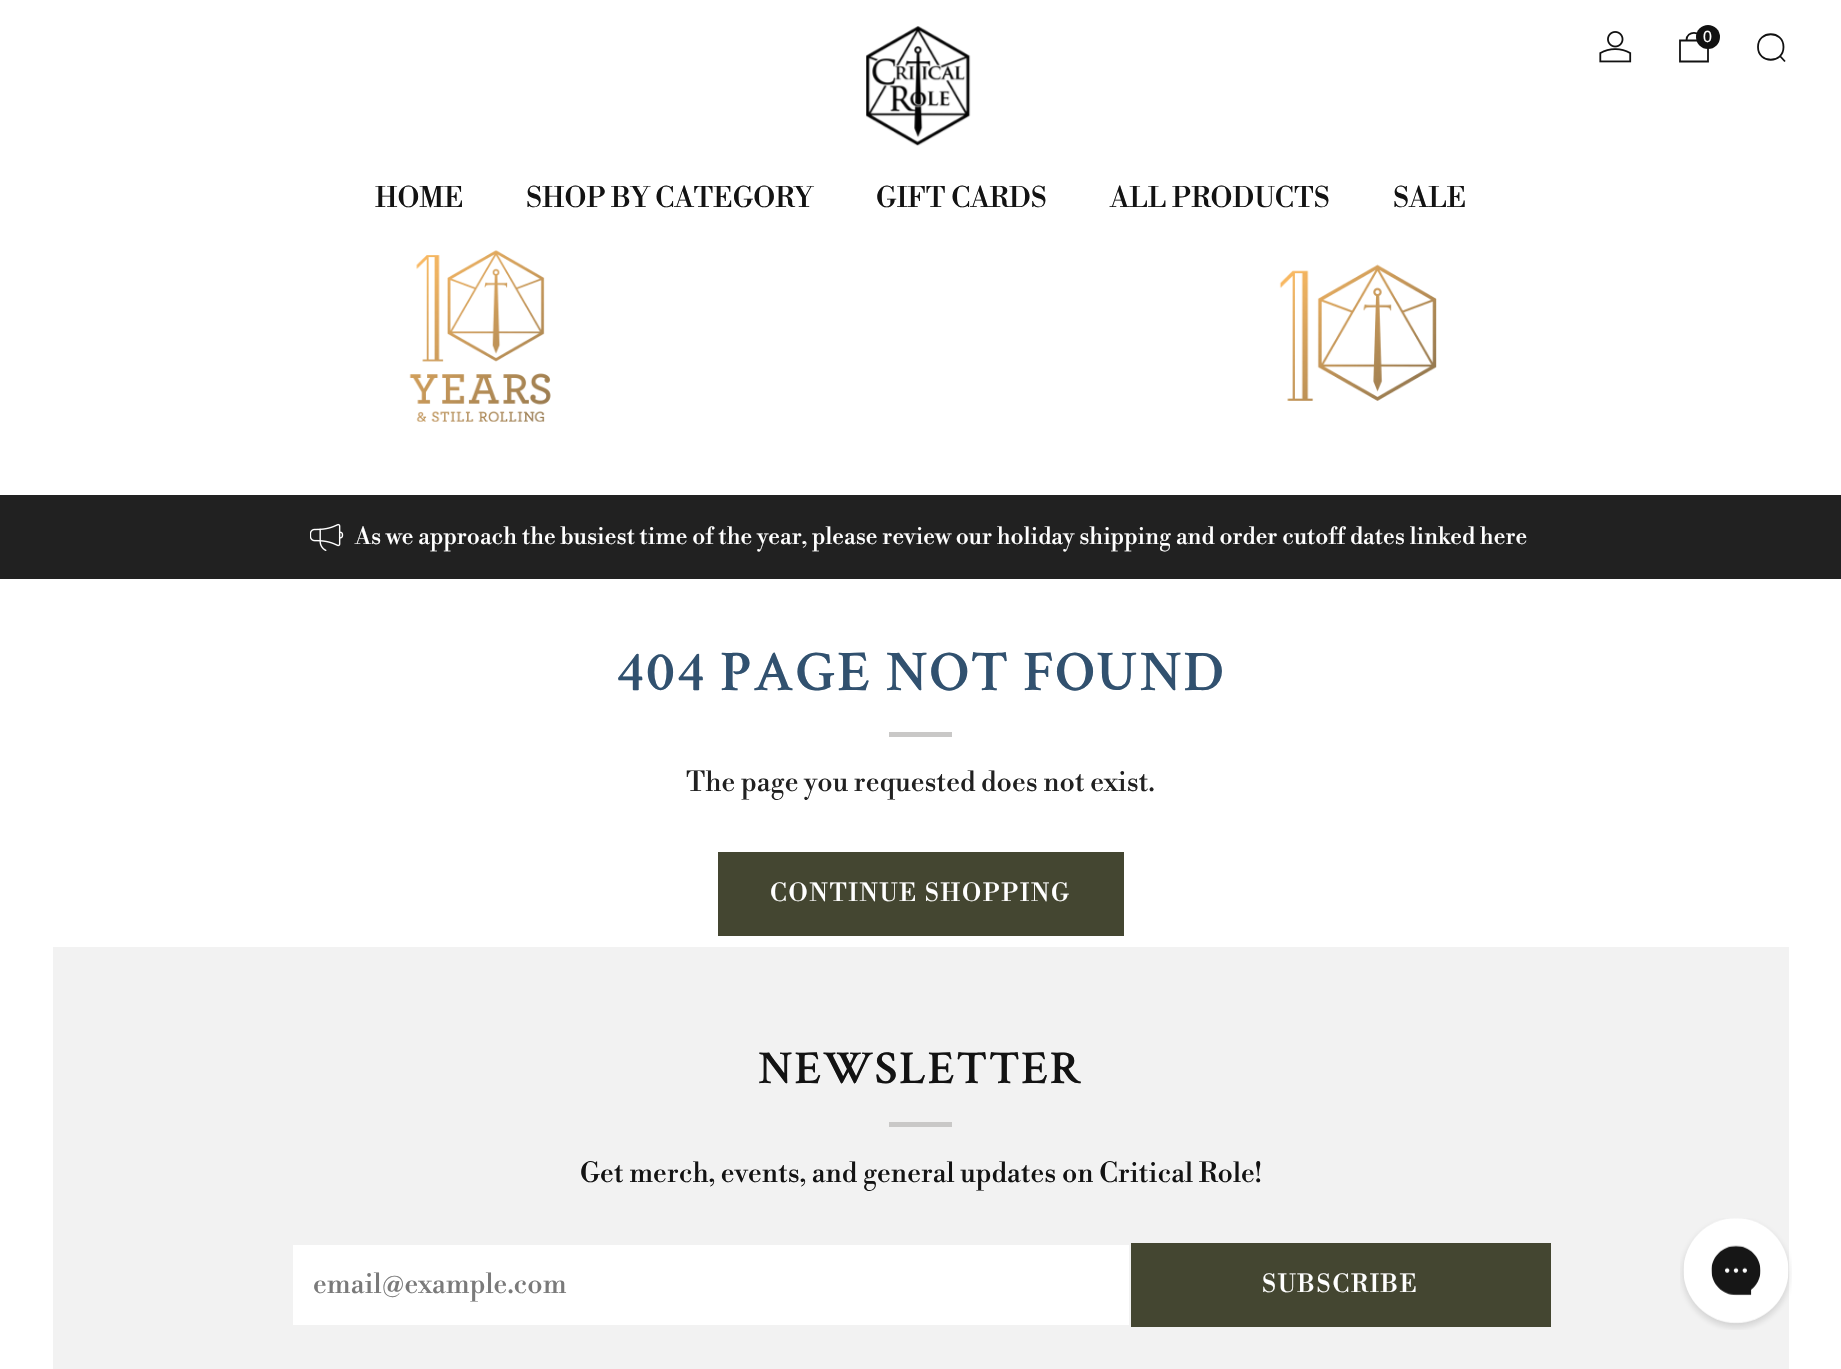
#include "include/core/SkBlurTypes.h"
#include "include/core/SkCanvas.h"
#include "include/core/SkData.h"
#include "include/core/SkFont.h"
#include "include/core/SkFontMgr.h"
#include "include/core/SkImage.h"
#include "include/core/SkMaskFilter.h"
#include "include/core/SkPaint.h"
#include "include/core/SkPathBuilder.h"
#include "include/core/SkTextBlob.h"
#include "include/effects/SkDashPathEffect.h"
#include "include/effects/SkGradientShader.h"
#include "include/utils/SkParsePath.h"

extern sk_sp<SkFontMgr> fontMgr;

void draw(SkCanvas* canvas) {
    SkPaint p;
    p.setAntiAlias(true);
    auto font = [&](const char* family, int weight, float size, bool italic = false) {
        SkFontStyle style(weight, SkFontStyle::kNormal_Width,
            italic ? SkFontStyle::kItalic_Slant : SkFontStyle::kUpright_Slant);
        SkFont result(fontMgr->matchFamilyStyle(family, style), size);
        result.setSubpixel(true);
        return result;
    };
    auto drawTracked = [&](const char* s, float x, float y, const SkFont& font, const SkPaint& ink, float letter, float word) {
        std::vector<SkGlyphID> glyphs(font.countText(s, strlen(s), SkTextEncoding::kUTF8));
        std::vector<float> xs(glyphs.size());
        font.textToGlyphs(s, strlen(s), SkTextEncoding::kUTF8, glyphs);
        font.getXPos(glyphs, xs, x);
        float extra = 0;
        for (size_t i = 0; i < glyphs.size(); i++) {
            xs[i] += extra;
            extra += letter + word * (glyphs[i] == font.unicharToGlyph(' '));
        }
        canvas->drawTextBlob(SkTextBlob::MakeFromPosHGlyphs(glyphs, xs, y, font), 0, 0, ink);
    };
    auto drawPhoto = [&](const char* path, float l, float t, float r, float b) {
        auto image = SkImages::DeferredFromEncodedData(SkData::MakeFromFileName(path));
        canvas->drawImageRect(image, SkRect::MakeLTRB(l, t, r, b), SkSamplingOptions());
    };
    canvas->clear(0xFFFFFFFF);
    drawPhoto("media/1.png", 866, 26, 971, 146);
    drawPhoto("media/2.png", 1599, 31, 1632, 63);
    p.setStyle(SkPaint::kStroke_Style);
    p.setStrokeWidth(1.8f);
    p.setColor(0xFF111111);
    canvas->drawPath(SkPathBuilder().moveTo(1701.5f, 40).cubicTo(1701.5f, 30.5f, 1686.5f, 30.5f, 1686.5f, 40).moveTo(1680, 40.5f).lineTo(1708, 40.5f).lineTo(1708, 61.5f).lineTo(1680, 61.5f).close().detach(), p);
    p.setStyle(SkPaint::kFill_Style);
    canvas->drawCircle(1708, 37, 12, p);
    auto font1 = font("Liberation Sans", 400, 16);
    p.setColor(0xFFFFFFFF);
    canvas->drawString("0", 1703, 42, font1, p);
    p.setStyle(SkPaint::kStroke_Style);
    p.setColor(0xFF111111);
    canvas->drawPath(SkPathBuilder().moveTo(1780, 56).lineTo(1785, 61.5f).moveTo(1783.5f, 47).cubicTo(1783.5f, 64, 1758, 64, 1758, 47).cubicTo(1758, 30, 1783.5f, 30, 1783.5f, 47).close().detach(), p);
    auto font2 = font("Libre Bodoni", 400, 28);
    p.setStyle(SkPaint::kFill_Style);
    p.setColor(0xFF131313);
    {
        const struct { const char* s; float x, y; } items[] = {
            {"HOME", 375, 207},
            {"SHOP BY CATEGORY", 526, 207},
            {"GIFT CARDS", 876, 207},
            {"ALL PRODUCTS", 1110, 207},
            {"SALE", 1393, 207},
        };
        for (auto [s, x, y] : items) {
            canvas->drawString(s, x, y, font2, p);
        }
    }
    drawPhoto("media/3.png", 409, 250, 551, 422);
    drawPhoto("media/4.png", 1279, 264, 1437, 401);
    p.setColor(0xFF212121);
    canvas->drawRect(SkRect::MakeLTRB(0, 495, 1841, 579), p);
    drawPhoto("media/5.png", 310, 523, 344, 551);
    auto font3 = font("Libre Bodoni", 400, 23.2f);
    p.setColor(0xFFFFFFFF);
    canvas->drawString("As we approach the busiest time of the year, please review our holiday shipping and order cutoff dates linked here", 355, 544, font3, p);
    auto font4 = font("Crimson Text", 600, 57.75f);
    p.setColor(0xFF31516F);
    drawTracked("404 PAGE NOT FOUND", 616, 690, font4, p, 1.75f, 0);
    p.setColor(0xFFC9C8C7);
    canvas->drawRect(SkRect::MakeLTRB(889, 732, 952, 737), p);
    auto font5 = font("Libre Bodoni", 400, 27.3f);
    p.setColor(0xFF212121);
    canvas->drawString("The page you requested does not exist.", 686, 791, font5, p);
    p.setColor(0xFF444631);
    canvas->drawRect(SkRect::MakeLTRB(718, 852, 1124, 936), p);
    auto font6 = font("Libre Bodoni", 400, 24.5f);
    p.setColor(0xFFFFFFFF);
    drawTracked("CONTINUE SHOPPING", 770, 901, font6, p, 1.75f, 0);
    p.setColor(0xFFF2F2F2);
    canvas->drawRect(SkRect::MakeLTRB(53, 947, 1789, 1369), p);
    auto font7 = font("Crimson Text", 600, 47.25f);
    p.setColor(0xFF131313);
    drawTracked("NEWSLETTER", 758, 1083, font7, p, 1.75f, 0);
    p.setColor(0xFFC9C8C7);
    canvas->drawRect(SkRect::MakeLTRB(889, 1122, 952, 1127), p);
    p.setColor(0xFF131313);
    canvas->drawString("Get merch, events, and general updates on Critical Role!", 580, 1182, font5, p);
    p.setColor(0xFFFFFFFF);
    canvas->drawRect(SkRect::MakeLTRB(293, 1245, 1129, 1325), p);
    p.setColor(0xFF7A7A7A);
    canvas->drawString("email@example.com", 313, 1293, font5, p);
    p.setColor(0xFF444631);
    canvas->drawRect(SkRect::MakeLTRB(1131, 1243, 1551, 1327), p);
    p.setColor(0xFFFFFFFF);
    drawTracked("SUBSCRIBE", 1262, 1292, font6, p, 1.75f, 0);
    drawPhoto("media/6.png", 1680, 1218, 1792, 1330);
}
